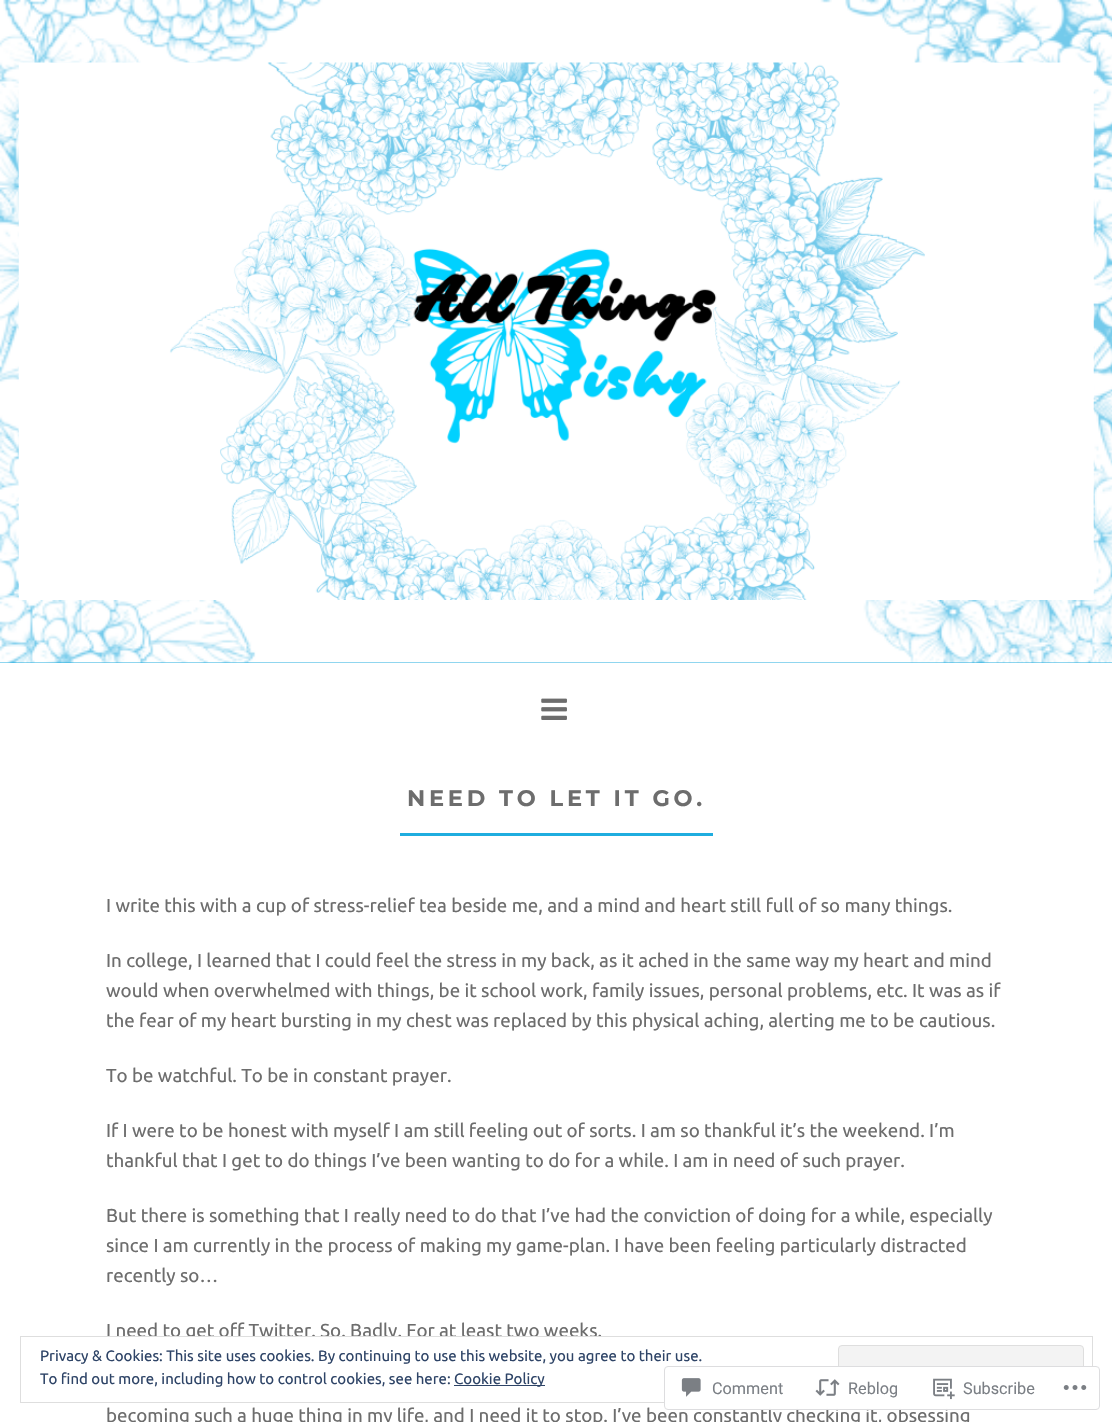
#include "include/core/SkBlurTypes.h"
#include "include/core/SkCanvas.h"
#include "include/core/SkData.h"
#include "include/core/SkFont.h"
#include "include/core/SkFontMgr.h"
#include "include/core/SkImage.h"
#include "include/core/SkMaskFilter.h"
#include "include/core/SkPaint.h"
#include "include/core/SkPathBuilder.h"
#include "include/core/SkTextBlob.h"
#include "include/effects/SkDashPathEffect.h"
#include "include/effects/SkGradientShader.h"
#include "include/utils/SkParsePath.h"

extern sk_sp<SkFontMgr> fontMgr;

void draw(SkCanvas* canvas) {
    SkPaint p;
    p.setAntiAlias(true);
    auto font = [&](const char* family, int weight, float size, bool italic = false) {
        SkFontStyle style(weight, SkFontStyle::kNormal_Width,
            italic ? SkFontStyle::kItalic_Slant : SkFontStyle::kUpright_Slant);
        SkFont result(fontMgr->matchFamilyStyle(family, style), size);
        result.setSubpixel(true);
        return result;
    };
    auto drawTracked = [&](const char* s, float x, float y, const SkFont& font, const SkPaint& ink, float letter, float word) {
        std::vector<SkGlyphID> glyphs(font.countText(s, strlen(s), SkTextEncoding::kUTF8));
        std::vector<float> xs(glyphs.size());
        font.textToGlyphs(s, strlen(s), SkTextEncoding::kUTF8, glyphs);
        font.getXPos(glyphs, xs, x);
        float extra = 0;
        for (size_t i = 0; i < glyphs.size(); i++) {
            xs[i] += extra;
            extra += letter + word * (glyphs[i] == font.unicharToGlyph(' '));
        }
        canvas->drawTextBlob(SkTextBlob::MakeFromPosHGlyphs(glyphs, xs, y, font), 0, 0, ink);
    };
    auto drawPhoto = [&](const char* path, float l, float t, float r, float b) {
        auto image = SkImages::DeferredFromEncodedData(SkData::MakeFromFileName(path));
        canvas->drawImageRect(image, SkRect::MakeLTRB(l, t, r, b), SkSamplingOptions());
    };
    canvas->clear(0xFFFFFFFF);
    p.setColor(0xFF1FADDF);
    canvas->drawRect(SkRect::MakeLTRB(0, 662, 1112, 663), p);
    drawPhoto("media/1.png", 0, 0, 1112, 663);
    drawPhoto("media/2.png", 18, 62, 1094, 600);
    drawPhoto("media/3.png", 541, 698, 567, 720);
    auto font1 = font("Montserrat", 700, 22.5f);
    p.setColor(0xFF6D6D6D);
    drawTracked("NEED TO LET IT GO.", 407, 806, font1, p, 3.75f, 0);
    p.setColor(0xFF1FADDF);
    canvas->drawRect(SkRect::MakeLTRB(400, 833, 713, 836), p);
    auto font2 = font("Ubuntu", 400, 18.75f);
    p.setColor(0xFF6D6D6D);
    {
        const struct { const char* s; float x, y; } items[] = {
            {"I write this with a cup of stress-relief tea beside me, and a mind and heart still full of so many things.", 106, 912},
            {"In college, I learned that I could feel the stress in my back, as it ached in the same way my heart and mind", 106, 967},
            {"would when overwhelmed with things, be it school work, family issues, personal problems, etc. It was as if", 106, 997},
            {"the fear of my heart bursting in my chest was replaced by this physical aching, alerting me to be cautious.", 106, 1027},
            {"To be watchful. To be in constant prayer.", 106, 1082},
            {"If I were to be honest with myself I am still feeling out of sorts. I am so thankful it’s the weekend. I’m", 106, 1137},
            {"thankful that I get to do things I’ve been wanting to do for a while. I am in need of such prayer.", 106, 1167},
            {"But there is something that I really need to do that I’ve had the conviction of doing for a while, especially", 106, 1222},
            {"since I am currently in the process of making my game-plan. I have been feeling particularly distracted", 106, 1252},
            {"recently so…", 106, 1282},
            {"I need to get off Twitter. So. Badly. For at least two weeks.", 106, 1337},
            {"becoming such a huge thing in my life, and I need it to stop. I’ve been constantly checking it, obsessing", 106, 1422},
        };
        for (auto [s, x, y] : items) {
            canvas->drawString(s, x, y, font2, p);
        }
    }
    p.setColor(0xFFFFFFFF);
    canvas->drawRect(SkRect::MakeLTRB(130, 1337, 601, 1341), p);
    p.setStyle(SkPaint::kStroke_Style);
    p.setStrokeWidth(1);
    p.setColor(0xFFDEDEDE);
    canvas->drawRect(SkRect::MakeLTRB(20.5f, 1336.5f, 1092.5f, 1402.5f), p);
    auto font3 = font("Ubuntu", 400, 15);
    p.setStyle(SkPaint::kFill_Style);
    p.setColor(0xFF2E4467);
    canvas->drawString("Privacy & Cookies: This site uses cookies. By continuing to use this website, you agree to their use.", 40, 1361, font3, p);
    p.setColor(0xFFF3F3F3);
    canvas->drawRoundRect(SkRect::MakeLTRB(838.5f, 1345.5f, 1083.5f, 1393.5f), 3.5f, 3.5f, p);
    p.setStyle(SkPaint::kStroke_Style);
    p.setColor(0xFFDEDEDE);
    canvas->drawRoundRect(SkRect::MakeLTRB(838.5f, 1345.5f, 1083.5f, 1393.5f), 3.5f, 3.5f, p);
    p.setStyle(SkPaint::kFill_Style);
    p.setColor(0xFF2E4467);
    canvas->drawString("To find out more, including how to control cookies, see here:", 40, 1384, font3, p);
    canvas->drawRect(SkRect::MakeLTRB(454, 1385, 545, 1386), p);
    canvas->drawString("Cookie Policy", 454, 1384, font3, p);
    p.setColor(0xFAFFFFFF);
    canvas->drawRoundRect(SkRect::MakeLTRB(664, 1366, 1100, 1410), 4, 4, p);
    p.setStyle(SkPaint::kStroke_Style);
    p.setColor(0xFADCDCDE);
    canvas->drawRoundRect(SkRect::MakeLTRB(664.5f, 1366.5f, 1099.5f, 1409.5f), 3.5f, 3.5f, p);
    drawPhoto("media/4.png", 681, 1378, 701, 1397);
    auto font4 = font("Roboto", 400, 16.25f);
    p.setStyle(SkPaint::kFill_Style);
    p.setColor(0xFF7B7F85);
    canvas->drawString("Comment", 712, 1394, font4, p);
    drawPhoto("media/5.png", 815, 1379, 840, 1396);
    canvas->drawString("Reblog", 848, 1394, font4, p);
    drawPhoto("media/6.png", 933, 1378, 955, 1400);
    canvas->drawString("Subscribe", 963, 1394, font4, p);
    drawPhoto("media/7.png", 1063, 1385, 1087, 1390);
}
